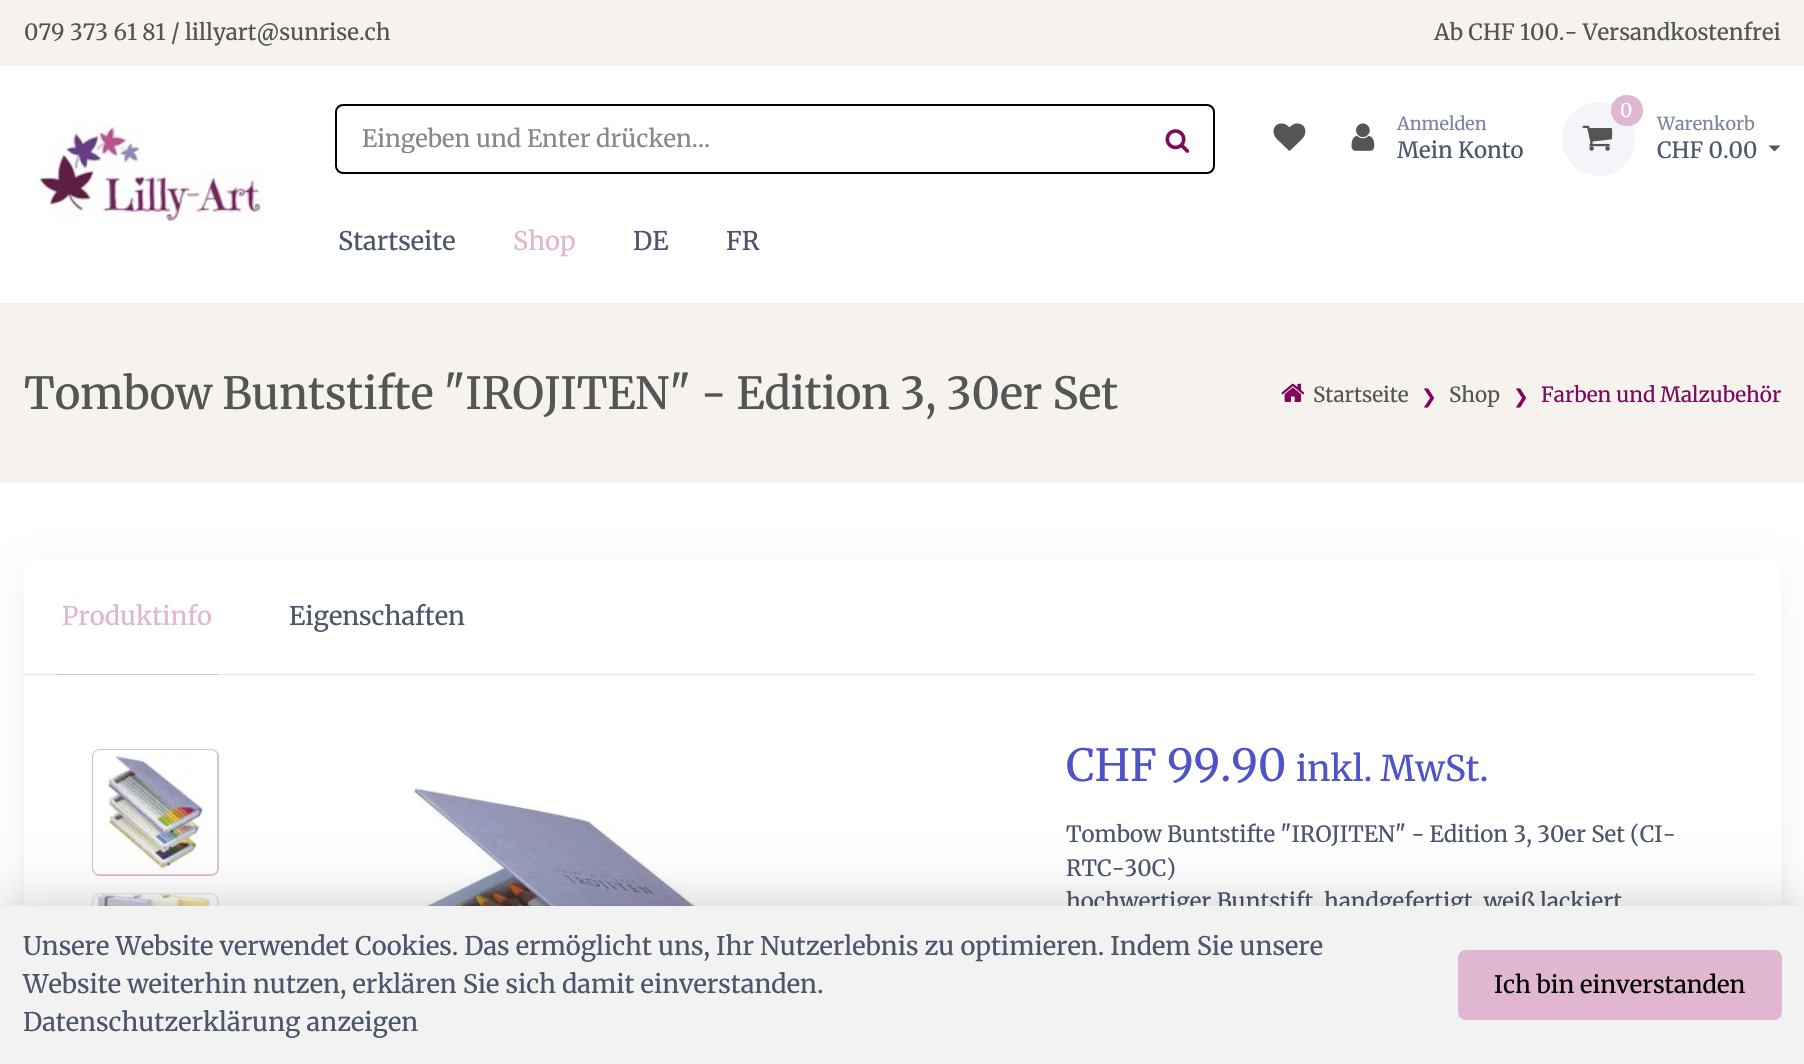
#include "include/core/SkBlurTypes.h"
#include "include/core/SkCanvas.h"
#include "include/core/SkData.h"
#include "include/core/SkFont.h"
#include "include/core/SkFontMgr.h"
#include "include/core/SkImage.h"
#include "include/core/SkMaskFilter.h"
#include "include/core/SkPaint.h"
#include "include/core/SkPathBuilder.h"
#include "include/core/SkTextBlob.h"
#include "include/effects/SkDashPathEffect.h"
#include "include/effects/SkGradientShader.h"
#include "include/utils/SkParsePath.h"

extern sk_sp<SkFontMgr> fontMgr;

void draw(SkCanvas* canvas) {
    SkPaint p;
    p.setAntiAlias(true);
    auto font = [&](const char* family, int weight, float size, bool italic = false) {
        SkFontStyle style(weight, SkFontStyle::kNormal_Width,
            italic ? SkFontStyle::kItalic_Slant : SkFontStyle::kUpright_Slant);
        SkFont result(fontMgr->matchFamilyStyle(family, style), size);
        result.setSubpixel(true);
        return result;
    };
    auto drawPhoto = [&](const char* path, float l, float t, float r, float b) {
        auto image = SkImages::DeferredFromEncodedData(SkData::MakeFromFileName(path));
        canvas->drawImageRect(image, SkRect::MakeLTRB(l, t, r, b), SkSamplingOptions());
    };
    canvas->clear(0xFFFFFFFF);
    p.setColor(0xFFF6F2EE);
    canvas->drawRect(SkRect::MakeLTRB(0, 0, 1804, 66), p);
    auto font1 = font("Merriweather", 400, 22.3f);
    p.setColor(0xFF555555);
    canvas->drawString("079 373 61 81 / lillyart@sunrise.ch", 24, 40, font1, p);
    canvas->drawString("Ab CHF 100.- Versandkostenfrei", 1434, 40, font1, p);
    drawPhoto("media/1.png", 36, 124, 264, 221);
    p.setStyle(SkPaint::kStroke_Style);
    p.setStrokeWidth(2);
    p.setColor(0xFF000000);
    canvas->drawRoundRect(SkRect::MakeLTRB(336, 105, 1214, 173), 7, 7, p);
    canvas->save();
    canvas->clipRect(SkRect::MakeLTRB(362, 123, 1137, 153));
    auto font2 = font("Merriweather", 400, 23.9f);
    p.setStyle(SkPaint::kFill_Style);
    p.setColor(0xFF888888);
    canvas->drawString("Eingeben und Enter drücken...", 362, 147, font2, p);
    canvas->restore();
    drawPhoto("media/2.png", 1165, 129, 1190, 153);
    drawPhoto("media/3.png", 1273, 123, 1306, 151);
    drawPhoto("media/4.png", 1351, 123, 1375, 151);
    auto font3 = font("Merriweather", 400, 18);
    p.setColor(0xFF7D879C);
    canvas->drawString("Anmelden", 1397, 130, font3, p);
    p.setColor(0xFF4B566B);
    canvas->drawString("Mein Konto", 1397, 158, font1, p);
    p.setColor(0xFFF3F5F9);
    canvas->drawRoundRect(SkRect::MakeLTRB(1562, 102, 1635, 176), 36.5f, 36.5f, p);
    drawPhoto("media/5.png", 1582, 125, 1613, 151);
    p.setColor(0xFFE1B6D1);
    canvas->drawRoundRect(SkRect::MakeLTRB(1611, 95, 1643, 126), 15.5f, 15.5f, p);
    auto font4 = font("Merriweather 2", 500, 19);
    p.setColor(0xFFFFFFFF);
    canvas->drawString("0", 1620, 117, font4, p);
    p.setColor(0xFF7D879C);
    canvas->drawString("Warenkorb", 1657, 130, font3, p);
    p.setColor(0xFF4B566B);
    canvas->drawString("CHF 0.00", 1657, 158, font1, p);
    canvas->drawPath(SkPathBuilder().moveTo(1768.5f, 145.5f).lineTo(1780.5f, 145.5f).lineTo(1774.5f, 151.5f).close().detach(), p);
    auto font5 = font("Merriweather", 400, 25.5f);
    canvas->drawString("Startseite", 338, 250, font5, p);
    p.setColor(0xFFE1B6D1);
    canvas->drawString("Shop", 513, 250, font5, p);
    p.setColor(0xFF4B566B);
    canvas->drawString("DE", 633, 250, font5, p);
    canvas->drawString("FR", 726, 250, font5, p);
    p.setColor(0xFFF6F2EE);
    canvas->drawRect(SkRect::MakeLTRB(0, 303, 1804, 483), p);
    auto font6 = font("Merriweather", 500, 44.1f);
    p.setColor(0xFF555555);
    canvas->drawString("Tombow Buntstifte \"IROJITEN\" - Edition 3, 30er Set", 24, 409, font6, p);
    drawPhoto("media/6.png", 1281, 383, 1305, 402);
    auto font7 = font("Merriweather", 400, 20.75f);
    canvas->drawString("Startseite", 1313, 402, font7, p);
    auto font8 = font("DejaVu Sans", 400, 19);
    p.setColor(0xFF80085A);
    canvas->drawString("❯", 1421, 403, font8, p);
    p.setColor(0xFF555555);
    canvas->drawString("Shop", 1449, 402, font7, p);
    p.setColor(0xFF80085A);
    canvas->drawString("❯", 1513, 403, font8, p);
    canvas->drawString("Farben und Malzubehör", 1541, 402, font7, p);
    p.setColor(0x1A000000);
    p.setMaskFilter(SkMaskFilter::MakeBlur(kNormal_SkBlurStyle, 19.5f));
    canvas->drawRoundRect(SkRect::MakeLTRB(33, 576, 1772, 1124), 1.5f, 1.5f, p);
    p.setMaskFilter(nullptr);
    p.setColor(0xFFFFFFFF);
    canvas->drawRoundRect(SkRect::MakeLTRB(24, 560, 1781, 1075), 11, 11, p);
    p.setColor(0xFFE3E9EF);
    canvas->drawRect(SkRect::MakeLTRB(24, 674, 1755, 675), p);
    p.setColor(0xFFE1B6D1);
    canvas->drawString("Produktinfo", 62, 625, font5, p);
    canvas->drawRect(SkRect::MakeLTRB(56, 674, 219, 675), p);
    p.setColor(0xFF4B566B);
    canvas->drawString("Eigenschaften", 289, 625, font5, p);
    p.setStyle(SkPaint::kStroke_Style);
    p.setColor(0xFFE1B6D1);
    canvas->drawRoundRect(SkRect::MakeLTRB(93, 750, 218, 875), 7, 7, p);
    drawPhoto("media/7.png", 93, 750, 218, 875);
    p.setColor(0xFFE3E9EF);
    canvas->drawRoundRect(SkRect::MakeLTRB(93, 894, 218, 1019), 7, 7, p);
    drawPhoto("media/8.png", 93, 894, 218, 906);
    drawPhoto("media/9.png", 366, 787, 899, 906);
    auto font9 = font("Merriweather 2", 400, 44.1f);
    p.setStyle(SkPaint::kFill_Style);
    p.setColor(0xFF4E54C8);
    canvas->drawString("CHF 99.90", 1066, 781, font9, p);
    auto font10 = font("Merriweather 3", 400, 35.25f);
    canvas->drawString("inkl. MwSt.", 1296, 781, font10, p);
    p.setColor(0xFF4B566B);
    {
        const struct { const char* s; float x, y; } items[] = {
            {"Tombow Buntstifte \"IROJITEN\" - Edition 3, 30er Set (CI-", 1066, 842},
            {"RTC-30C)", 1066, 876},
            {"hochwertiger Buntstift, handgefertigt, weiß lackiert", 1066, 909},
        };
        for (auto [s, x, y] : items) {
            canvas->drawString(s, x, y, font1, p);
        }
    }
    p.setColor(0x33000000);
    p.setMaskFilter(SkMaskFilter::MakeBlur(kNormal_SkBlurStyle, 25.5f));
    canvas->drawRect(SkRect::MakeLTRB(0, 906, 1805, 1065), p);
    p.setMaskFilter(nullptr);
    p.setColor(0xFFF2F2F2);
    canvas->drawRect(SkRect::MakeLTRB(0, 906, 1804, 1064), p);
    p.setColor(0xFF4B566B);
    {
        const struct { const char* s; float x, y; } items[] = {
            {"Unsere Website verwendet Cookies. Das ermöglicht uns, Ihr Nutzerlebnis zu optimieren. Indem Sie unsere", 23, 955},
            {"Website weiterhin nutzen, erklären Sie sich damit einverstanden.", 23, 993},
            {"Datenschutzerklärung anzeigen", 23, 1031},
        };
        for (auto [s, x, y] : items) {
            canvas->drawString(s, x, y, font5, p);
        }
    }
    p.setColor(0xFFE1B6D1);
    canvas->drawRoundRect(SkRect::MakeLTRB(1459, 951, 1781, 1019), 7, 7, p);
    p.setStyle(SkPaint::kStroke_Style);
    canvas->drawRoundRect(SkRect::MakeLTRB(1459, 951, 1781, 1019), 7, 7, p);
    p.setStyle(SkPaint::kFill_Style);
    p.setColor(0xFF000000);
    canvas->drawString("Ich bin einverstanden", 1494, 993, font2, p);
}
